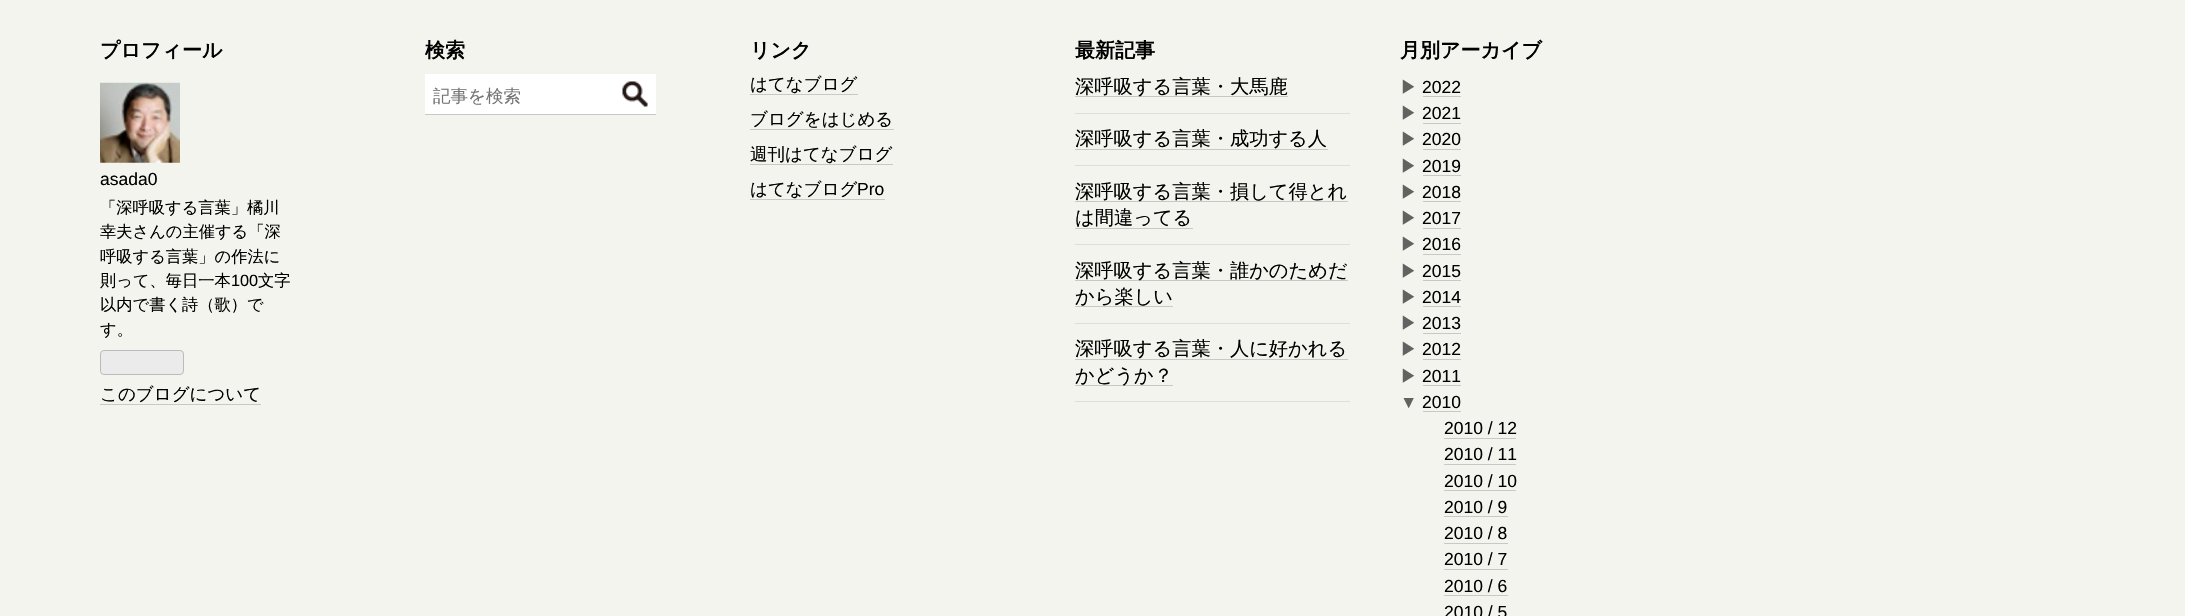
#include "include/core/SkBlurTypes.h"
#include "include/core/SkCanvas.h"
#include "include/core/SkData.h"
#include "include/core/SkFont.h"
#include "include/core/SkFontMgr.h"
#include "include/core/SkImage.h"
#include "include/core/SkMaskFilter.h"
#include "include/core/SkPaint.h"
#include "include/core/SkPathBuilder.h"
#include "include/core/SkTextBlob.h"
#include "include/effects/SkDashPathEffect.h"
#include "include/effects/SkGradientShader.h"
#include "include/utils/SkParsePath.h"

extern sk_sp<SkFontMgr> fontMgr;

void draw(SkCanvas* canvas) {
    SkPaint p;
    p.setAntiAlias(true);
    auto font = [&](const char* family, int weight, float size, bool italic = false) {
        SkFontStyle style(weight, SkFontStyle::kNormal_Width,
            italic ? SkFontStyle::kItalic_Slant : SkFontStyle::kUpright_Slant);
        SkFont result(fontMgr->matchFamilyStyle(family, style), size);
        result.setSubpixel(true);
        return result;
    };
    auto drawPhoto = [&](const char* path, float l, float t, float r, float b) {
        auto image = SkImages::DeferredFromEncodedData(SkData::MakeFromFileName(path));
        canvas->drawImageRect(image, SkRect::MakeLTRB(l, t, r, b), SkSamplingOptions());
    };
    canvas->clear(0xFFF4F4EF);
    auto font1 = font("WenQuanYi Zen Hei", 700, 20);
    p.setColor(0xFF000000);
    canvas->drawString("プロフィール", 100, 57, font1, p);
    drawPhoto("media/1.png", 100, 82, 180, 163);
    auto font2 = font("Liberation Sans", 400, 17.5f);
    canvas->drawString("asada0", 100, 185, font2, p);
    auto font3 = font("WenQuanYi Zen Hei", 500, 16.25f);
    {
        const struct { const char* s; float x, y; } items[] = {
            {"「深呼吸する言葉」橘川", 100, 213},
            {"幸夫さんの主催する「深", 100, 237},
            {"呼吸する言葉」の作法に", 100, 262},
            {"則って、毎日一本", 100, 286},
        };
        for (auto [s, x, y] : items) {
            canvas->drawString(s, x, y, font3, p);
        }
    }
    auto font4 = font("Liberation Sans", 400, 16.25f);
    canvas->drawString("100", 231, 286, font4, p);
    {
        const struct { const char* s; float x, y; } items[] = {
            {"文字", 258, 286},
            {"以内で書く詩（歌）で", 100, 310},
            {"す。", 100, 335},
        };
        for (auto [s, x, y] : items) {
            canvas->drawString(s, x, y, font3, p);
        }
    }
    p.setColor(0xFFEBEBEB);
    canvas->drawRoundRect(SkRect::MakeLTRB(100.5f, 350.5f, 183.5f, 374.5f), 3.5f, 3.5f, p);
    p.setStyle(SkPaint::kStroke_Style);
    p.setStrokeWidth(1);
    p.setColor(0xFFBBBBBB);
    canvas->drawRoundRect(SkRect::MakeLTRB(100.5f, 350.5f, 183.5f, 374.5f), 3.5f, 3.5f, p);
    auto font5 = font("WenQuanYi Zen Hei", 500, 17.5f);
    p.setStyle(SkPaint::kFill_Style);
    p.setColor(0xFF000000);
    canvas->drawString("このブログについて", 100, 400, font5, p);
    p.setColor(0xFFC9C9C3);
    canvas->drawRect(SkRect::MakeLTRB(100, 404, 261, 405), p);
    p.setColor(0xFF000000);
    canvas->drawString("検索", 425, 57, font1, p);
    p.setColor(0xFFFFFFFF);
    canvas->drawRect(SkRect::MakeLTRB(425, 74, 656, 114), p);
    p.setColor(0xFFC9C9C3);
    canvas->drawRect(SkRect::MakeLTRB(425, 114, 656, 115), p);
    p.setColor(0xFF757575);
    canvas->drawString("記事を検索", 433, 102, font5, p);
    drawPhoto("media/2.png", 622, 81, 648, 107);
    p.setColor(0xFF000000);
    canvas->drawString("リンク", 750, 57, font1, p);
    canvas->drawString("はてなブログ", 750, 90, font5, p);
    p.setColor(0xFFC9C9C3);
    canvas->drawRect(SkRect::MakeLTRB(750, 94, 858, 95), p);
    p.setColor(0xFF000000);
    canvas->drawString("ブログをはじめる", 750, 125, font5, p);
    p.setColor(0xFFC9C9C3);
    canvas->drawRect(SkRect::MakeLTRB(750, 129, 894, 130), p);
    p.setColor(0xFF000000);
    canvas->drawString("週刊はてなブログ", 750, 160, font5, p);
    p.setColor(0xFFC9C9C3);
    canvas->drawRect(SkRect::MakeLTRB(750, 164, 893, 165), p);
    p.setColor(0xFF000000);
    canvas->drawString("はてなブログ", 750, 195, font5, p);
    p.setColor(0xFFC9C9C3);
    canvas->drawRect(SkRect::MakeLTRB(750, 199, 885, 200), p);
    p.setColor(0xFF000000);
    canvas->drawString("Pro", 857, 195, font2, p);
    canvas->drawString("最新記事", 1075, 57, font1, p);
    p.setColor(0xFFDDDDDD);
    canvas->drawRect(SkRect::MakeLTRB(1075, 113, 1350, 114), p);
    p.setColor(0xFFC9C9C3);
    canvas->drawRect(SkRect::MakeLTRB(1075, 96, 1288, 97), p);
    auto font6 = font("WenQuanYi Zen Hei", 500, 19.25f);
    p.setColor(0xFF000000);
    canvas->drawString("深呼吸する言葉・大馬鹿", 1075, 93, font6, p);
    p.setColor(0xFFDDDDDD);
    canvas->drawRect(SkRect::MakeLTRB(1075, 165, 1350, 166), p);
    p.setColor(0xFF000000);
    canvas->drawString("深呼吸する言葉・成功する人", 1075, 145, font6, p);
    {
        const struct { float l, t, r, b; SkColor color; } items[] = {
            {1075, 149, 1328, 150, 0xFFC9C9C3},
            {1075, 244, 1350, 245, 0xFFDDDDDD},
            {1075, 201, 1348, 202, 0xFFC9C9C3},
        };
        for (auto [l, t, r, b, color] : items) {
            p.setColor(color);
            canvas->drawRect(SkRect::MakeLTRB(l, t, r, b), p);
        }
    }
    p.setColor(0xFF000000);
    canvas->drawString("深呼吸する言葉・損して得とれ", 1075, 198, font6, p);
    canvas->drawString("は間違ってる", 1075, 224, font6, p);
    {
        const struct { float l, t, r, b; SkColor color; } items[] = {
            {1075, 228, 1193, 229, 0xFFC9C9C3},
            {1075, 323, 1350, 324, 0xFFDDDDDD},
            {1075, 280, 1348, 281, 0xFFC9C9C3},
        };
        for (auto [l, t, r, b, color] : items) {
            p.setColor(color);
            canvas->drawRect(SkRect::MakeLTRB(l, t, r, b), p);
        }
    }
    p.setColor(0xFF000000);
    canvas->drawString("深呼吸する言葉・誰かのためだ", 1075, 277, font6, p);
    canvas->drawString("から楽しい", 1075, 303, font6, p);
    p.setColor(0xFFC9C9C3);
    canvas->drawRect(SkRect::MakeLTRB(1075, 306, 1173, 307), p);
    p.setColor(0xFFDDDDDD);
    canvas->drawRect(SkRect::MakeLTRB(1075, 401, 1350, 402), p);
    p.setColor(0xFF000000);
    canvas->drawString("深呼吸する言葉・人に好かれる", 1075, 355, font6, p);
    p.setColor(0xFFC9C9C3);
    canvas->drawRect(SkRect::MakeLTRB(1075, 359, 1348, 360), p);
    canvas->drawRect(SkRect::MakeLTRB(1075, 385, 1173, 386), p);
    p.setColor(0xFF000000);
    canvas->drawString("かどうか？", 1075, 382, font6, p);
    canvas->drawString("月別アーカイブ", 1400, 57, font1, p);
    p.setColor(0xFF626260);
    canvas->drawString("▶", 1400, 93, font5, p);
    p.setColor(0xFF000000);
    canvas->drawString("2022", 1422, 93, font2, p);
    p.setColor(0xFFC9C9C3);
    canvas->drawRect(SkRect::MakeLTRB(1423, 96, 1461, 97), p);
    p.setColor(0xFF626260);
    canvas->drawString("▶", 1400, 119, font5, p);
    p.setColor(0xFF000000);
    canvas->drawString("2021", 1422, 119, font2, p);
    p.setColor(0xFFC9C9C3);
    canvas->drawRect(SkRect::MakeLTRB(1423, 123, 1461, 124), p);
    p.setColor(0xFF626260);
    canvas->drawString("▶", 1400, 145, font5, p);
    p.setColor(0xFF000000);
    canvas->drawString("2020", 1422, 145, font2, p);
    p.setColor(0xFFC9C9C3);
    canvas->drawRect(SkRect::MakeLTRB(1423, 149, 1461, 150), p);
    p.setColor(0xFF626260);
    canvas->drawString("▶", 1400, 172, font5, p);
    p.setColor(0xFF000000);
    canvas->drawString("2019", 1422, 172, font2, p);
    p.setColor(0xFFC9C9C3);
    canvas->drawRect(SkRect::MakeLTRB(1423, 175, 1461, 176), p);
    p.setColor(0xFF626260);
    canvas->drawString("▶", 1400, 198, font5, p);
    p.setColor(0xFF000000);
    canvas->drawString("2018", 1422, 198, font2, p);
    p.setColor(0xFFC9C9C3);
    canvas->drawRect(SkRect::MakeLTRB(1423, 201, 1461, 202), p);
    p.setColor(0xFF626260);
    canvas->drawString("▶", 1400, 224, font5, p);
    p.setColor(0xFF000000);
    canvas->drawString("2017", 1422, 224, font2, p);
    p.setColor(0xFFC9C9C3);
    canvas->drawRect(SkRect::MakeLTRB(1423, 228, 1461, 229), p);
    p.setColor(0xFF626260);
    canvas->drawString("▶", 1400, 250, font5, p);
    p.setColor(0xFF000000);
    canvas->drawString("2016", 1422, 250, font2, p);
    p.setColor(0xFFC9C9C3);
    canvas->drawRect(SkRect::MakeLTRB(1423, 254, 1461, 255), p);
    p.setColor(0xFF626260);
    canvas->drawString("▶", 1400, 277, font5, p);
    p.setColor(0xFF000000);
    canvas->drawString("2015", 1422, 277, font2, p);
    p.setColor(0xFFC9C9C3);
    canvas->drawRect(SkRect::MakeLTRB(1423, 280, 1461, 281), p);
    p.setColor(0xFF626260);
    canvas->drawString("▶", 1400, 303, font5, p);
    p.setColor(0xFF000000);
    canvas->drawString("2014", 1422, 303, font2, p);
    p.setColor(0xFFC9C9C3);
    canvas->drawRect(SkRect::MakeLTRB(1423, 306, 1461, 307), p);
    p.setColor(0xFF626260);
    canvas->drawString("▶", 1400, 329, font5, p);
    p.setColor(0xFF000000);
    canvas->drawString("2013", 1422, 329, font2, p);
    p.setColor(0xFFC9C9C3);
    canvas->drawRect(SkRect::MakeLTRB(1423, 333, 1461, 334), p);
    p.setColor(0xFF626260);
    canvas->drawString("▶", 1400, 355, font5, p);
    p.setColor(0xFF000000);
    canvas->drawString("2012", 1422, 355, font2, p);
    p.setColor(0xFFC9C9C3);
    canvas->drawRect(SkRect::MakeLTRB(1423, 359, 1461, 360), p);
    p.setColor(0xFF626260);
    canvas->drawString("▶", 1400, 382, font5, p);
    p.setColor(0xFF000000);
    canvas->drawString("2011", 1422, 382, font2, p);
    p.setColor(0xFFC9C9C3);
    canvas->drawRect(SkRect::MakeLTRB(1423, 385, 1461, 386), p);
    p.setColor(0xFF626260);
    canvas->drawString("▼", 1400, 408, font2, p);
    p.setColor(0xFF000000);
    canvas->drawString("2010", 1422, 408, font2, p);
    p.setColor(0xFFC9C9C3);
    canvas->drawRect(SkRect::MakeLTRB(1423, 411, 1461, 412), p);
    p.setColor(0xFF000000);
    canvas->drawString("2010 / 12", 1444, 434, font2, p);
    p.setColor(0xFFC9C9C3);
    canvas->drawRect(SkRect::MakeLTRB(1444, 438, 1516, 439), p);
    p.setColor(0xFF000000);
    canvas->drawString("2010 / 11", 1444, 460, font2, p);
    p.setColor(0xFFC9C9C3);
    canvas->drawRect(SkRect::MakeLTRB(1444, 464, 1516, 465), p);
    p.setColor(0xFF000000);
    canvas->drawString("2010 / 10", 1444, 487, font2, p);
    p.setColor(0xFFC9C9C3);
    canvas->drawRect(SkRect::MakeLTRB(1444, 490, 1516, 491), p);
    p.setColor(0xFF000000);
    canvas->drawString("2010 / 9", 1444, 513, font2, p);
    p.setColor(0xFFC9C9C3);
    canvas->drawRect(SkRect::MakeLTRB(1444, 516, 1508, 517), p);
    p.setColor(0xFF000000);
    canvas->drawString("2010 / 8", 1444, 539, font2, p);
    p.setColor(0xFFC9C9C3);
    canvas->drawRect(SkRect::MakeLTRB(1444, 543, 1508, 544), p);
    p.setColor(0xFF000000);
    canvas->drawString("2010 / 7", 1444, 565, font2, p);
    p.setColor(0xFFC9C9C3);
    canvas->drawRect(SkRect::MakeLTRB(1444, 569, 1508, 570), p);
    p.setColor(0xFF000000);
    canvas->drawString("2010 / 6", 1444, 592, font2, p);
    p.setColor(0xFFC9C9C3);
    canvas->drawRect(SkRect::MakeLTRB(1444, 595, 1508, 596), p);
    p.setColor(0xFF000000);
    canvas->drawString("2010 / 5", 1444, 618, font2, p);
}
